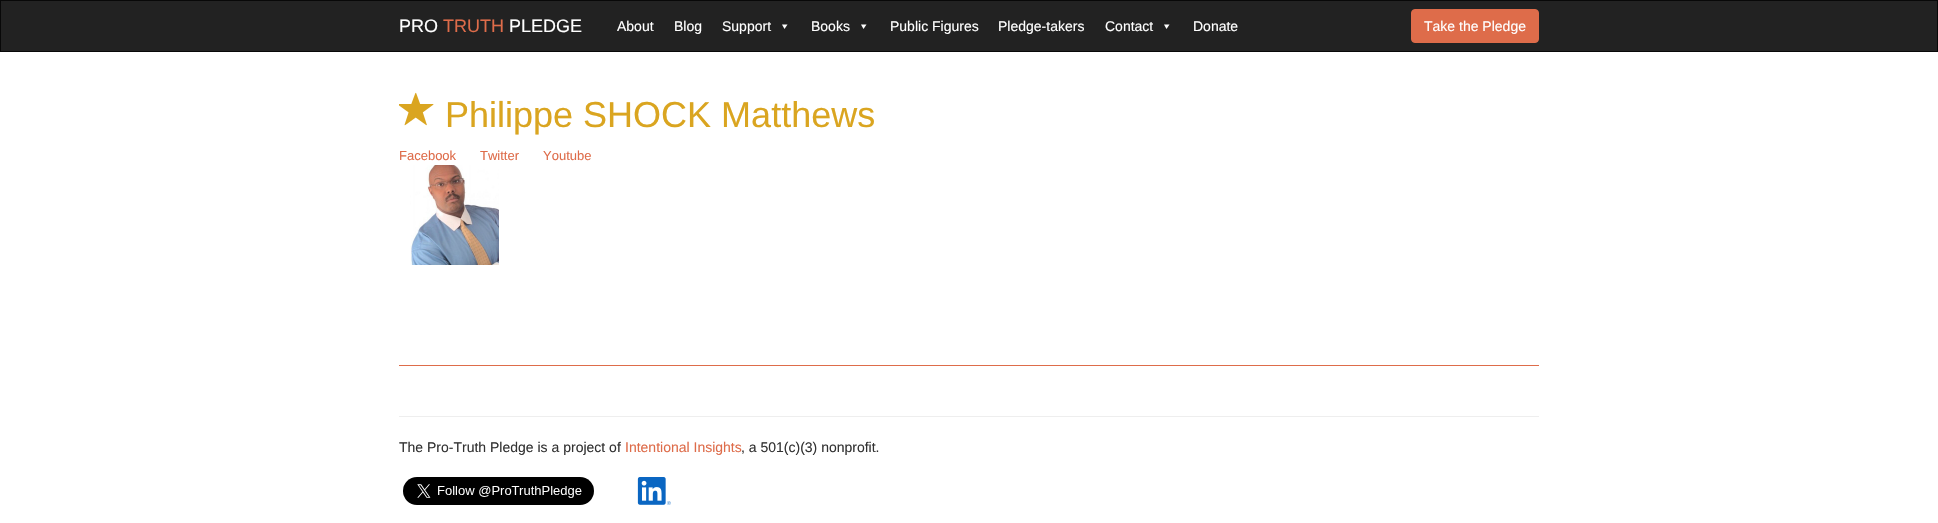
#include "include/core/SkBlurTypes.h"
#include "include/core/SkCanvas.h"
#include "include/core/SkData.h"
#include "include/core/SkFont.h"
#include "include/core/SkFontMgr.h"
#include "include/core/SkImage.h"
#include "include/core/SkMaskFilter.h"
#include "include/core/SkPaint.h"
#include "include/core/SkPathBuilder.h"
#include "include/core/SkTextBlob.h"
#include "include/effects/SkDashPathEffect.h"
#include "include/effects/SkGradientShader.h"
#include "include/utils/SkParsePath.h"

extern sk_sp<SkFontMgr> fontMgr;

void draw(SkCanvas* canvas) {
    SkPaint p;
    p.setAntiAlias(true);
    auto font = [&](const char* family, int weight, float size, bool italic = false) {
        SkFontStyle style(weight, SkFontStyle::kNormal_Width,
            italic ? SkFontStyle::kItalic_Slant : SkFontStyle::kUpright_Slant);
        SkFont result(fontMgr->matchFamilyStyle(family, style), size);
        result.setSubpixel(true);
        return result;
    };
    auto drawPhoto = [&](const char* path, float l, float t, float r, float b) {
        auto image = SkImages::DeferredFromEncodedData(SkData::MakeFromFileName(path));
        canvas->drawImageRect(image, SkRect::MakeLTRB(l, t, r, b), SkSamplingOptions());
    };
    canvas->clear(0xFFFFFFFF);
    p.setColor(0xFF222222);
    canvas->drawRect(SkRect::MakeLTRB(0.5f, 0.5f, 1937.5f, 51.5f), p);
    p.setStyle(SkPaint::kStroke_Style);
    p.setStrokeWidth(1);
    p.setColor(0xFF080808);
    canvas->drawRect(SkRect::MakeLTRB(0.5f, 0.5f, 1937.5f, 51.5f), p);
    auto font1 = font("Liberation Sans", 400, 18);
    p.setStyle(SkPaint::kFill_Style);
    p.setColor(0xFFFFFFFF);
    canvas->drawString("PRO", 399, 32, font1, p);
    p.setColor(0xFFDE6C4A);
    canvas->drawString("TRUTH", 443, 32, font1, p);
    p.setColor(0xFFFFFFFF);
    canvas->drawString("PLEDGE", 509, 32, font1, p);
    auto font2 = font("Liberation Sans", 400, 14);
    {
        const struct { const char* s; float x, y; } items[] = {
            {"About", 617, 31},
            {"Blog", 674, 31},
            {"Support", 722, 31},
        };
        for (auto [s, x, y] : items) {
            canvas->drawString(s, x, y, font2, p);
        }
    }
    canvas->drawPath(SkPathBuilder().moveTo(787.5f, 24.5f).lineTo(784.5f, 29).lineTo(782, 24.5f).close().detach(), p);
    canvas->drawString("Books", 811, 31, font2, p);
    canvas->drawPath(SkPathBuilder().moveTo(866.5f, 24.5f).lineTo(863.5f, 29).lineTo(861, 24.5f).close().detach(), p);
    {
        const struct { const char* s; float x, y; } items[] = {
            {"Public Figures", 890, 31},
            {"Pledge-takers", 998, 31},
            {"Contact", 1105, 31},
        };
        for (auto [s, x, y] : items) {
            canvas->drawString(s, x, y, font2, p);
        }
    }
    canvas->drawPath(SkPathBuilder().moveTo(1169.5f, 24.5f).lineTo(1166.5f, 29).lineTo(1164, 24.5f).close().detach(), p);
    canvas->drawString("Donate", 1193, 31, font2, p);
    p.setColor(0xFFDE6C4A);
    canvas->drawRoundRect(SkRect::MakeLTRB(1411.5f, 9.5f, 1538.5f, 42.5f), 3.5f, 3.5f, p);
    p.setStyle(SkPaint::kStroke_Style);
    canvas->drawRoundRect(SkRect::MakeLTRB(1411.5f, 9.5f, 1538.5f, 42.5f), 3.5f, 3.5f, p);
    p.setStyle(SkPaint::kFill_Style);
    p.setColor(0xFFFFFFFF);
    canvas->drawString("Take the Pledge", 1424, 31, font2, p);
    p.setColor(0xFFDE6C4A);
    canvas->drawRect(SkRect::MakeLTRB(399, 365, 1539, 366), p);
    drawPhoto("media/1.png", 399, 92, 434, 126);
    auto font3 = font("Liberation Sans", 400, 36);
    p.setColor(0xFFDAA520);
    canvas->drawString("Philippe SHOCK Matthews", 445, 127, font3, p);
    auto font4 = font("Liberation Sans", 400, 13);
    p.setColor(0xFFDE6C4A);
    {
        const struct { const char* s; float x, y; } items[] = {
            {"Facebook", 399, 160},
            {"Twitter", 480, 160},
            {"Youtube", 543, 160},
        };
        for (auto [s, x, y] : items) {
            canvas->drawString(s, x, y, font4, p);
        }
    }
    drawPhoto("media/2.png", 410, 165, 499, 265);
    p.setColor(0xFFEEEEEE);
    canvas->drawRect(SkRect::MakeLTRB(399, 416, 1539, 417), p);
    p.setColor(0xFF333333);
    canvas->drawString("The Pro-Truth Pledge is a project of", 399, 452, font2, p);
    p.setColor(0xFFDE6C4A);
    canvas->drawString("Intentional Insights", 625, 452, font2, p);
    p.setColor(0xFF333333);
    canvas->drawString(", a 501(c)(3) nonprofit.", 741, 452, font2, p);
    drawPhoto("media/3.png", 403, 477, 594, 505);
    drawPhoto("media/4.png", 637, 477, 671, 505);
}
